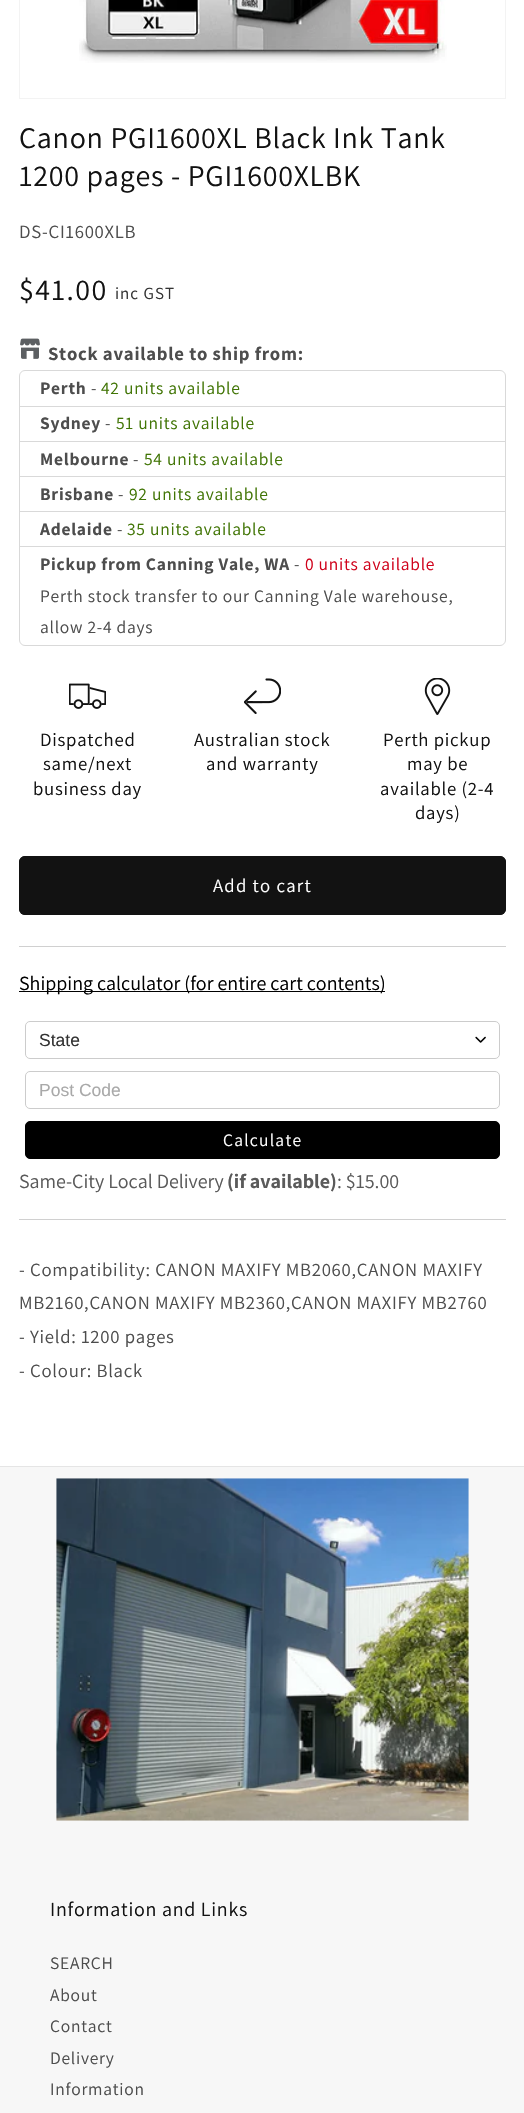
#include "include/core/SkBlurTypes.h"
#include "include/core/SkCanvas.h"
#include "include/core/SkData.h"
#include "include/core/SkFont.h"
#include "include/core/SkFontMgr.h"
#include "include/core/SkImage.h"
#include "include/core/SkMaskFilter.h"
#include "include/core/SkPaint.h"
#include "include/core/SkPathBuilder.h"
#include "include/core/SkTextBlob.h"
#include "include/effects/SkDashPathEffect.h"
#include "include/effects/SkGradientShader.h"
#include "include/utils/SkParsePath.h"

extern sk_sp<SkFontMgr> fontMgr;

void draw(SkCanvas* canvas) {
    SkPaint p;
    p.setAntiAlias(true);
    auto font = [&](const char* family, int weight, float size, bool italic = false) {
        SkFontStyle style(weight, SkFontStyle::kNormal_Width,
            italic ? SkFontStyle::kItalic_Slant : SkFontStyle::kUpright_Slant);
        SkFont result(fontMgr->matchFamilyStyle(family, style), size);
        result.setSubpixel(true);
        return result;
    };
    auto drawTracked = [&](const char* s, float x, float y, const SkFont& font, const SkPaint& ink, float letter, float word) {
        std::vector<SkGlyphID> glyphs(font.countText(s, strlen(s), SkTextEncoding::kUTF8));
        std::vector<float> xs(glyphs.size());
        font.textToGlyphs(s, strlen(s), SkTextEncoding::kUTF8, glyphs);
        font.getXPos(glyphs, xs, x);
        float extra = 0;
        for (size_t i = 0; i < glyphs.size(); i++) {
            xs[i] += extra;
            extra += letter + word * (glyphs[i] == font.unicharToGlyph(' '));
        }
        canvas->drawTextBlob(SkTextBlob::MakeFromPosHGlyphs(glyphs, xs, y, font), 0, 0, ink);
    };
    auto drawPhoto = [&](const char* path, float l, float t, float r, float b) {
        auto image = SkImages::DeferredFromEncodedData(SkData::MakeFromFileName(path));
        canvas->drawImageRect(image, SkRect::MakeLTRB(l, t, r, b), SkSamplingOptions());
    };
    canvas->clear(0xFFFFFFFF);
    p.setStyle(SkPaint::kStroke_Style);
    p.setStrokeWidth(1);
    p.setColor(0xFFF3F3F3);
    canvas->drawRect(SkRect::MakeLTRB(19.5f, -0.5f, 505.5f, 98.5f), p);
    drawPhoto("media/1.png", 79, 0, 447, 63);
    auto font1 = font("Assistant", 400, 30);
    p.setStyle(SkPaint::kFill_Style);
    p.setColor(0xFF121212);
    drawTracked("Canon PGI1600XL Black Ink Tank", 19, 148, font1, p, 0.75f, 0);
    drawTracked("1200 pages - PGI1600XLBK", 19, 186, font1, p, 0.75f, 0);
    auto font2 = font("Assistant", 400, 18.75f);
    p.setColor(0xFF4D4D4D);
    drawTracked("DS-CI1600XLB", 19, 238, font2, p, 0.75f, 0);
    p.setColor(0xFF121212);
    drawTracked("$41.00", 19, 300, font1, p, 1.5f, 0);
    auto font3 = font("Assistant", 400, 17);
    p.setColor(0xFF333333);
    drawTracked("inc GST", 115, 299, font3, p, 1, 0);
    drawPhoto("media/2.png", 20, 338, 40, 359);
    auto font4 = font("Assistant", 700, 18.75f);
    p.setColor(0xFF4D4D4D);
    drawTracked("Stock available to ship from:", 48, 360, font4, p, 0.75f, 0);
    p.setStyle(SkPaint::kStroke_Style);
    p.setColor(0xFFD9D9D9);
    canvas->drawRoundRect(SkRect::MakeLTRB(19.5f, 370.5f, 505.5f, 645.5f), 5.5f, 5.5f, p);
    auto font5 = font("Assistant", 700, 17.5f);
    p.setStyle(SkPaint::kFill_Style);
    p.setColor(0xFF4D4D4D);
    drawTracked("Perth", 40, 394, font5, p, 0.75f, 0);
    auto font6 = font("Assistant", 400, 17.5f);
    drawTracked("-", 91, 394, font6, p, 0.75f, 0);
    p.setColor(0xFF417505);
    drawTracked("42 units available", 101, 394, font6, p, 0.75f, 0);
    p.setColor(0xFFD9D9D9);
    canvas->drawRect(SkRect::MakeLTRB(20, 406, 505, 407), p);
    p.setColor(0xFF4D4D4D);
    drawTracked("Sydney", 40, 429, font5, p, 0.75f, 0);
    drawTracked("-", 105, 429, font6, p, 0.75f, 0);
    p.setColor(0xFF417505);
    drawTracked("51 units available", 116, 429, font6, p, 0.75f, 0);
    p.setColor(0xFFD9D9D9);
    canvas->drawRect(SkRect::MakeLTRB(20, 441, 505, 442), p);
    p.setColor(0xFF4D4D4D);
    drawTracked("Melbourne", 40, 465, font5, p, 0.75f, 0);
    drawTracked("-", 133, 465, font6, p, 0.75f, 0);
    p.setColor(0xFF417505);
    drawTracked("54 units available", 144, 465, font6, p, 0.75f, 0);
    p.setColor(0xFFD9D9D9);
    canvas->drawRect(SkRect::MakeLTRB(20, 476, 505, 477), p);
    p.setColor(0xFF4D4D4D);
    drawTracked("Brisbane", 40, 500, font5, p, 0.75f, 0);
    drawTracked("-", 118, 500, font6, p, 0.75f, 0);
    p.setColor(0xFF417505);
    drawTracked("92 units available", 129, 500, font6, p, 0.75f, 0);
    p.setColor(0xFFD9D9D9);
    canvas->drawRect(SkRect::MakeLTRB(20, 511, 505, 512), p);
    p.setColor(0xFF4D4D4D);
    drawTracked("Adelaide", 40, 535, font5, p, 0.75f, 0);
    drawTracked("-", 117, 535, font6, p, 0.75f, 0);
    p.setColor(0xFF417505);
    drawTracked("35 units available", 127, 535, font6, p, 0.75f, 0);
    p.setColor(0xFFD9D9D9);
    canvas->drawRect(SkRect::MakeLTRB(20, 546, 505, 547), p);
    p.setColor(0xFF4D4D4D);
    drawTracked("Pickup from Canning Vale, WA", 40, 570, font5, p, 0.75f, 0);
    drawTracked("-", 294, 570, font6, p, 0.75f, 0);
    p.setColor(0xFFD0021B);
    drawTracked("0 units available", 305, 570, font6, p, 0.75f, 0);
    p.setColor(0xFF4D4D4D);
    drawTracked("Perth stock transfer to our Canning Vale warehouse,", 40, 602, font6, p, 0.75f, 0);
    drawTracked("allow 2-4 days", 40, 633, font6, p, 0.75f, 0);
    drawPhoto("media/3.png", 69, 683, 106, 709);
    p.setColor(0xFF121212);
    {
        const struct { const char* s; float x, y; } items[] = {
            {"Dispatched", 40, 746},
            {"same/next", 43, 770},
            {"business day", 33, 795},
        };
        for (auto [s, x, y] : items) {
            drawTracked(s, x, y, font2, p, 0.75f, 0);
        }
    }
    drawPhoto("media/4.png", 244, 678, 281, 714);
    drawTracked("Australian stock", 194, 746, font2, p, 0.75f, 0);
    drawTracked("and warranty", 206, 770, font2, p, 0.75f, 0);
    drawPhoto("media/5.png", 424, 678, 451, 715);
    {
        const struct { const char* s; float x, y; } items[] = {
            {"Perth pickup", 383, 746},
            {"may be", 407, 770},
            {"available (2-4", 380, 795},
            {"days)", 415, 819},
        };
        for (auto [s, x, y] : items) {
            drawTracked(s, x, y, font2, p, 0.75f, 0);
        }
    }
    canvas->drawRoundRect(SkRect::MakeLTRB(19, 856, 506, 915), 6, 6, p);
    p.setStyle(SkPaint::kStroke_Style);
    canvas->drawRoundRect(SkRect::MakeLTRB(19.5f, 856.5f, 505.5f, 914.5f), 5.5f, 5.5f, p);
    p.setStyle(SkPaint::kFill_Style);
    p.setColor(0xFFFFFFFF);
    drawTracked("Add to cart", 213, 892, font2, p, 1.25f, 0);
    p.setColor(0xFFD0D0D0);
    canvas->drawRect(SkRect::MakeLTRB(19, 946, 506, 947), p);
    p.setColor(0xFF000000);
    canvas->drawRect(SkRect::MakeLTRB(19, 991, 385, 992), p);
    auto font7 = font("Assistant", 400, 20);
    canvas->drawString("Shipping calculator (for entire cart contents)", 19, 990, font7, p);
    drawPhoto("media/6.png", 475, 1036, 486, 1043);
    p.setStyle(SkPaint::kStroke_Style);
    p.setColor(0xFFCCCCCC);
    canvas->drawRoundRect(SkRect::MakeLTRB(25.5f, 1021.5f, 499.5f, 1058.5f), 4.5f, 4.5f, p);
    auto font8 = font("Liberation Sans", 400, 17.5f);
    p.setStyle(SkPaint::kFill_Style);
    p.setColor(0xFF333333);
    canvas->drawString("State", 39, 1046, font8, p);
    p.setStyle(SkPaint::kStroke_Style);
    p.setColor(0xFFCCCCCC);
    canvas->drawRoundRect(SkRect::MakeLTRB(25.5f, 1071.5f, 499.5f, 1108.5f), 4.5f, 4.5f, p);
    p.setStyle(SkPaint::kFill_Style);
    p.setColor(0xFFA9A9A9);
    canvas->drawString("Post Code", 39, 1096, font8, p);
    p.setColor(0xFF000000);
    canvas->drawRoundRect(SkRect::MakeLTRB(25.5f, 1121.5f, 499.5f, 1158.5f), 4.5f, 4.5f, p);
    p.setStyle(SkPaint::kStroke_Style);
    canvas->drawRoundRect(SkRect::MakeLTRB(25.5f, 1121.5f, 499.5f, 1158.5f), 4.5f, 4.5f, p);
    p.setStyle(SkPaint::kFill_Style);
    p.setColor(0xFFFFFFFF);
    drawTracked("Calculate", 223, 1146, font6, p, 1.25f, 0);
    p.setColor(0xFF5A5A5A);
    canvas->drawString("Same-City Local Delivery", 19, 1188, font7, p);
    auto font9 = font("Assistant", 700, 20);
    canvas->drawString("(if available)", 227, 1188, font9, p);
    canvas->drawString(": $15.00", 337, 1188, font7, p);
    p.setColor(0xFFD0D0D0);
    canvas->drawRect(SkRect::MakeLTRB(19, 1219, 506, 1220), p);
    p.setColor(0xFF4D4D4D);
    {
        const struct { const char* s; float x, y; } items[] = {
            {"- Compatibility: CANON MAXIFY MB2060,CANON MAXIFY", 19, 1276},
            {"MB2160,CANON MAXIFY MB2360,CANON MAXIFY MB2760", 19, 1309},
            {"- Yield: 1200 pages", 19, 1343},
            {"- Colour: Black", 19, 1377},
        };
        for (auto [s, x, y] : items) {
            drawTracked(s, x, y, font2, p, 0.75f, 0);
        }
    }
    p.setColor(0xFFF7F7F7);
    canvas->drawRect(SkRect::MakeLTRB(0, 1467, 524, 2113), p);
    p.setColor(0xFFE5E5E5);
    canvas->drawRect(SkRect::MakeLTRB(0, 1466, 524, 1467), p);
    drawPhoto("media/7.png", 56, 1478, 469, 1821);
    p.setColor(0xFF121212);
    drawTracked("Information and Links", 50, 1916, font7, p, 0.75f, 0);
    p.setColor(0xFF4D4D4D);
    {
        const struct { const char* s; float x, y; } items[] = {
            {"SEARCH", 50, 1969},
            {"About", 50, 2001},
            {"Contact", 50, 2032},
            {"Delivery", 50, 2064},
            {"Information", 50, 2095},
        };
        for (auto [s, x, y] : items) {
            drawTracked(s, x, y, font6, p, 0.75f, 0);
        }
    }
}
